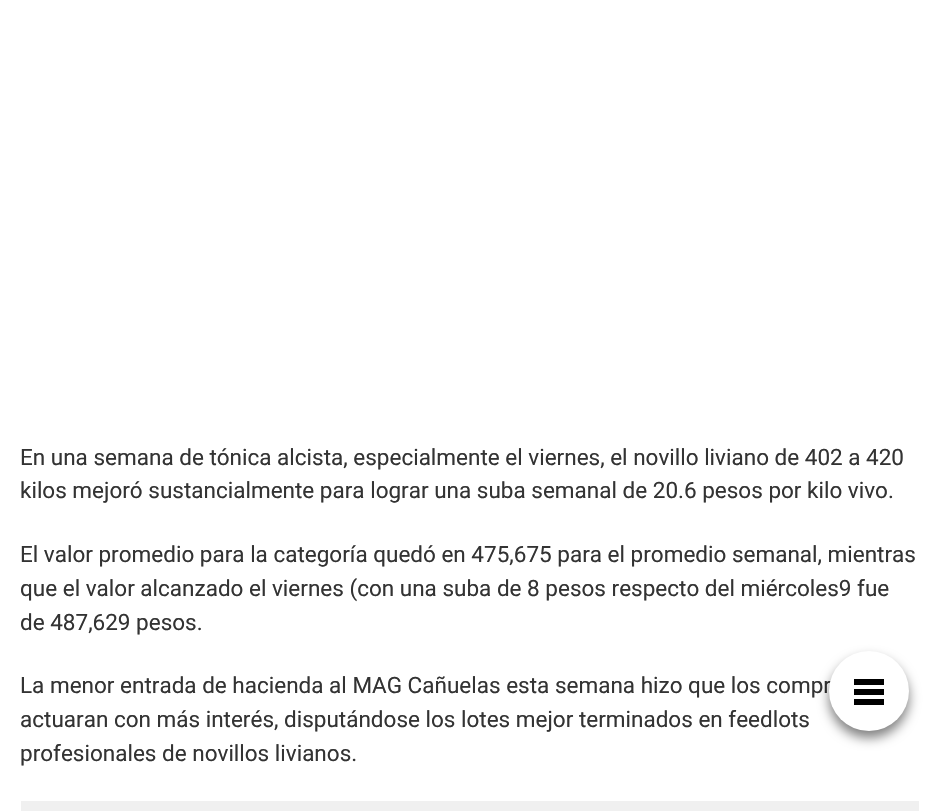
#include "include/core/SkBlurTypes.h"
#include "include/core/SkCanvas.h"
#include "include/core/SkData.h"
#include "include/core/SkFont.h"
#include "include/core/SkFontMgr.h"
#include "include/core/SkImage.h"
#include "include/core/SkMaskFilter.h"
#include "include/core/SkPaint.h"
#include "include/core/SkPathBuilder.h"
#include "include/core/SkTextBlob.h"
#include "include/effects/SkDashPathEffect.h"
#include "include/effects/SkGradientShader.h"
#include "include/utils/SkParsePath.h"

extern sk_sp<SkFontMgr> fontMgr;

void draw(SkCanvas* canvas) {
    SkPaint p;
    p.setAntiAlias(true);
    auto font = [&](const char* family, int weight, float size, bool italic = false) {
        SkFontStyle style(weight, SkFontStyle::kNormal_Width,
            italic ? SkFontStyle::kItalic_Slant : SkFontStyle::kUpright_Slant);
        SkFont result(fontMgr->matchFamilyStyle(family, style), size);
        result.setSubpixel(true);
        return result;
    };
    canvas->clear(0xFFFFFFFF);
    auto font1 = font("Roboto", 400, 22.5f);
    p.setColor(0xFF333333);
    {
        const struct { const char* s; float x, y; } items[] = {
            {"En una semana de tónica alcista, especialmente el viernes, el novillo liviano de 402 a 420", 20, 465},
            {"kilos mejoró sustancialmente para lograr una suba semanal de 20.6 pesos por kilo vivo.", 20, 498},
            {"El valor promedio para la categoría quedó en 475,675 para el promedio semanal, mientras", 20, 562},
            {"que el valor alcanzado el viernes (con una suba de 8 pesos respecto del miércoles9 fue", 20, 596},
            {"de 487,629 pesos.", 20, 630},
            {"La menor entrada de hacienda al MAG Cañuelas esta semana hizo que los compr", 20, 693},
            {"actuaran con más interés, disputándose los lotes mejor terminados en feedlots", 20, 727},
            {"profesionales de novillos livianos.", 20, 761},
        };
        for (auto [s, x, y] : items) {
            canvas->drawString(s, x, y, font1, p);
        }
    }
    p.setColor(0xFFF0F0F0);
    canvas->drawRect(SkRect::MakeLTRB(21, 801, 919, 811), p);
    p.setColor(0x80000000);
    p.setMaskFilter(SkMaskFilter::MakeBlur(kNormal_SkBlurStyle, 6));
    canvas->drawRoundRect(SkRect::MakeLTRB(829, 658, 909, 738), 40, 40, p);
    p.setMaskFilter(nullptr);
    p.setColor(0xFFFFFFFF);
    canvas->drawCircle(869, 691, 40, p);
    {
        const struct { float l, t, r, b; SkColor color; } items[] = {
            {854, 689, 884, 695, 0xFF000000},
            {854, 679, 884, 685, 0xFF000000},
            {854, 699, 884, 705, 0xFF000000},
        };
        for (auto [l, t, r, b, color] : items) {
            p.setColor(color);
            canvas->drawRect(SkRect::MakeLTRB(l, t, r, b), p);
        }
    }
}
